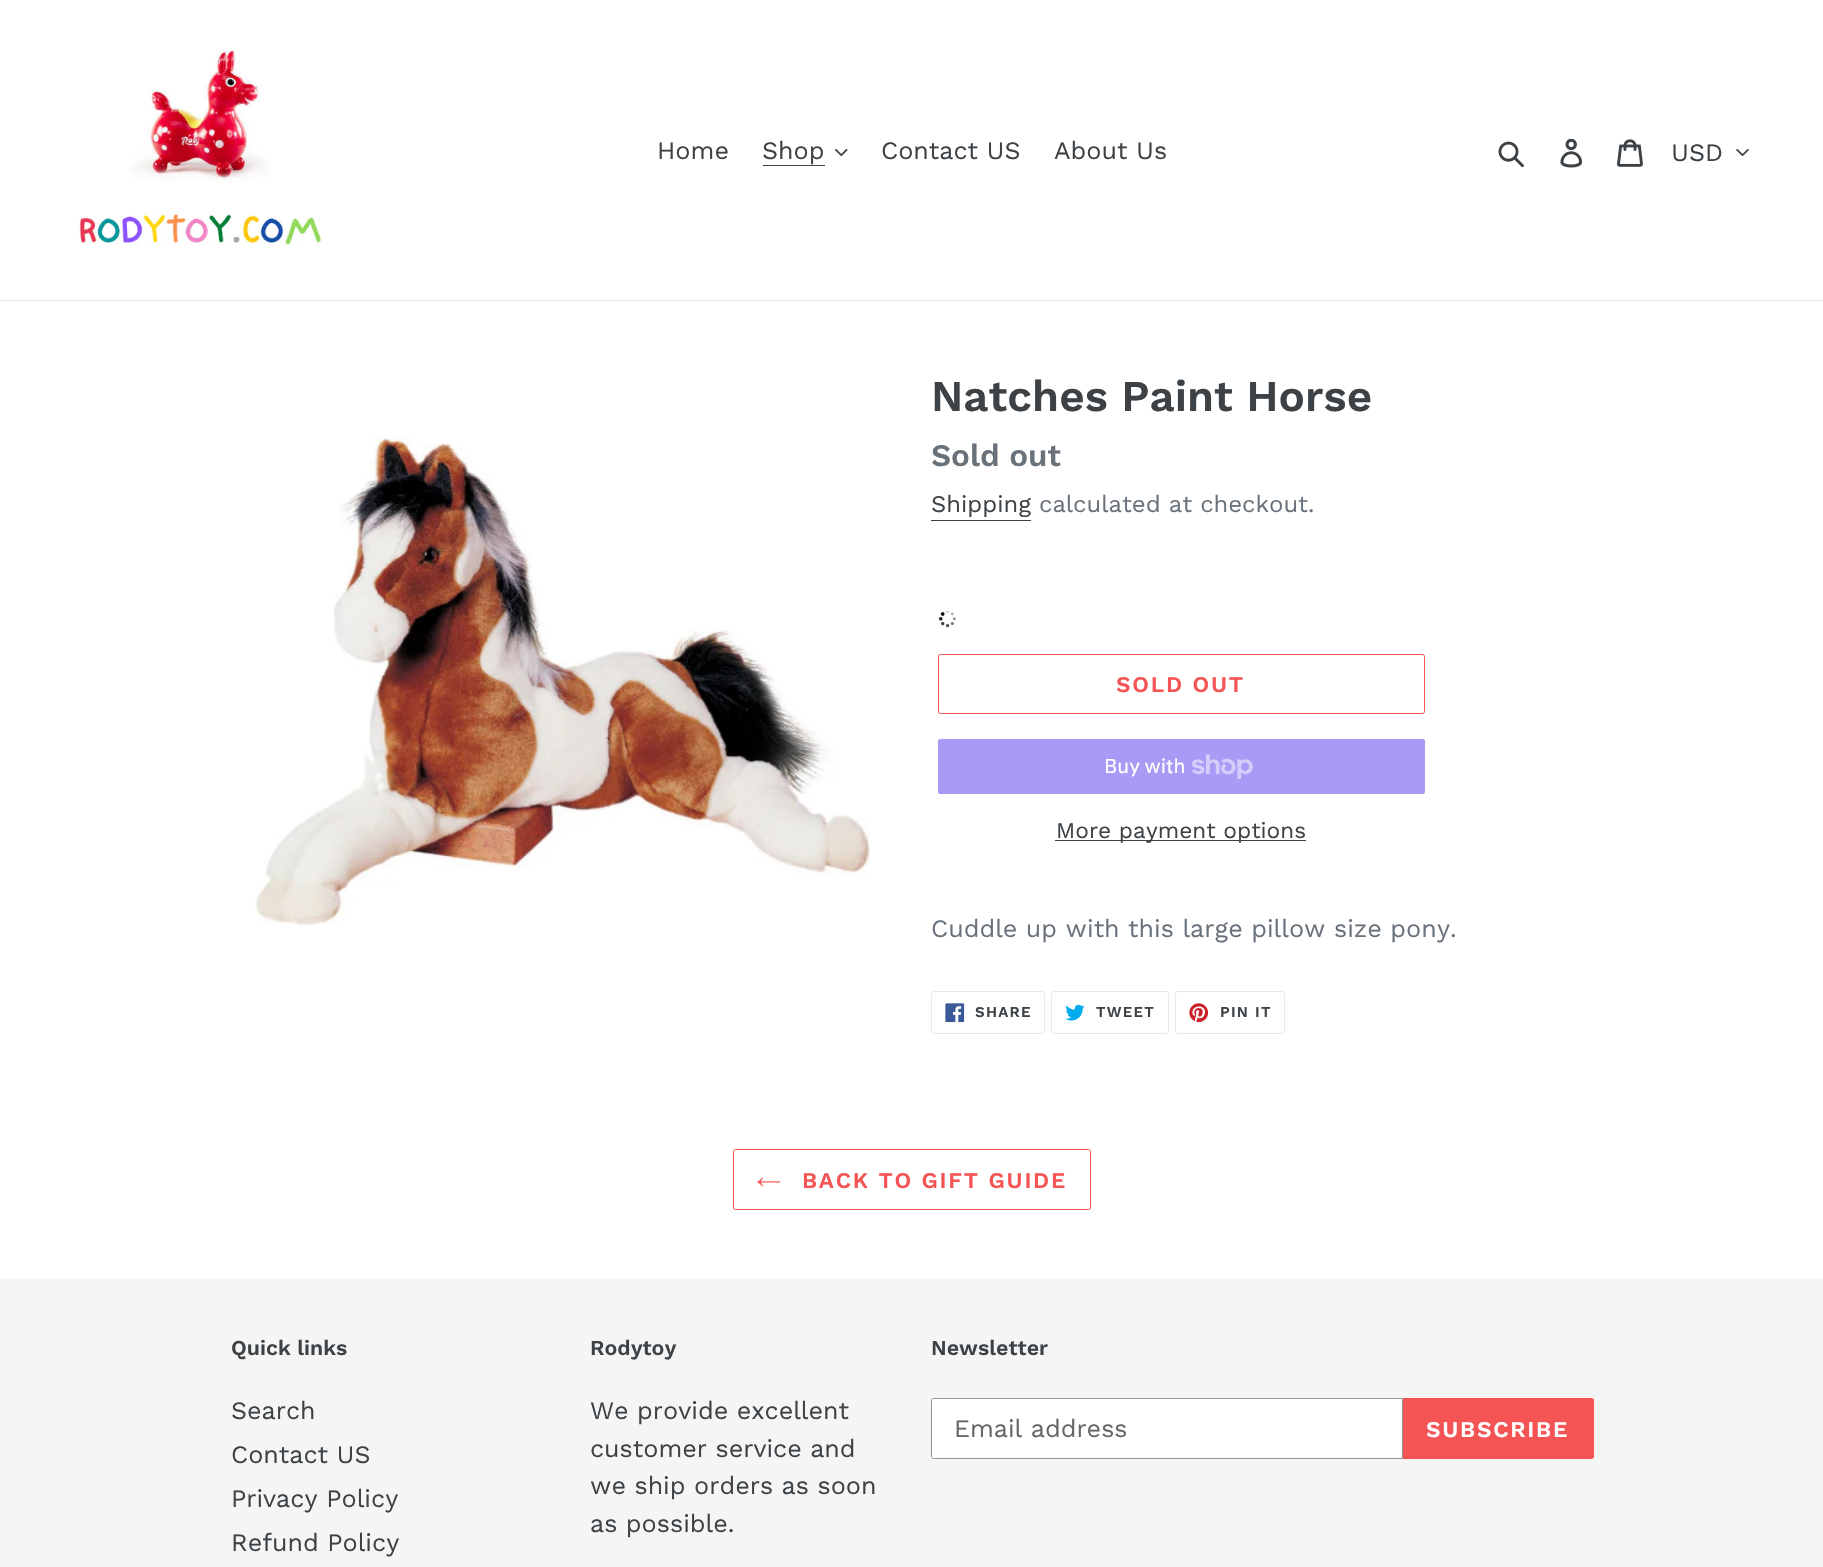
#include "include/core/SkBlurTypes.h"
#include "include/core/SkCanvas.h"
#include "include/core/SkData.h"
#include "include/core/SkFont.h"
#include "include/core/SkFontMgr.h"
#include "include/core/SkImage.h"
#include "include/core/SkMaskFilter.h"
#include "include/core/SkPaint.h"
#include "include/core/SkPathBuilder.h"
#include "include/core/SkTextBlob.h"
#include "include/effects/SkDashPathEffect.h"
#include "include/effects/SkGradientShader.h"
#include "include/utils/SkParsePath.h"

extern sk_sp<SkFontMgr> fontMgr;

void draw(SkCanvas* canvas) {
    SkPaint p;
    p.setAntiAlias(true);
    auto font = [&](const char* family, int weight, float size, bool italic = false) {
        SkFontStyle style(weight, SkFontStyle::kNormal_Width,
            italic ? SkFontStyle::kItalic_Slant : SkFontStyle::kUpright_Slant);
        SkFont result(fontMgr->matchFamilyStyle(family, style), size);
        result.setSubpixel(true);
        return result;
    };
    auto drawTracked = [&](const char* s, float x, float y, const SkFont& font, const SkPaint& ink, float letter, float word) {
        std::vector<SkGlyphID> glyphs(font.countText(s, strlen(s), SkTextEncoding::kUTF8));
        std::vector<float> xs(glyphs.size());
        font.textToGlyphs(s, strlen(s), SkTextEncoding::kUTF8, glyphs);
        font.getXPos(glyphs, xs, x);
        float extra = 0;
        for (size_t i = 0; i < glyphs.size(); i++) {
            xs[i] += extra;
            extra += letter + word * (glyphs[i] == font.unicharToGlyph(' '));
        }
        canvas->drawTextBlob(SkTextBlob::MakeFromPosHGlyphs(glyphs, xs, y, font), 0, 0, ink);
    };
    auto drawPhoto = [&](const char* path, float l, float t, float r, float b) {
        auto image = SkImages::DeferredFromEncodedData(SkData::MakeFromFileName(path));
        canvas->drawImageRect(image, SkRect::MakeLTRB(l, t, r, b), SkSamplingOptions());
    };
    canvas->clear(0xFFFFFFFF);
    p.setColor(0xFFE8E9EB);
    canvas->drawRect(SkRect::MakeLTRB(0, 300, 1823, 301), p);
    drawPhoto("media/1.png", 79, 48, 324, 246);
    auto font1 = font("Work Sans", 400, 25);
    p.setColor(0xFF3D4246);
    canvas->drawString("Home", 657, 159, font1, p);
    canvas->drawString("Shop", 762, 159, font1, p);
    canvas->drawRect(SkRect::MakeLTRB(763, 165, 825, 166), p);
    drawPhoto("media/2.png", 835, 149, 848, 156);
    canvas->drawString("Contact US", 881, 159, font1, p);
    canvas->drawString("About Us", 1054, 159, font1, p);
    drawPhoto("media/3.png", 1498, 141, 1524, 168);
    drawPhoto("media/4.png", 1560, 139, 1582, 168);
    drawPhoto("media/5.png", 1617, 139, 1643, 167);
    canvas->drawString("USD", 1671, 161, font1, p);
    drawPhoto("media/6.png", 1736, 149, 1749, 156);
    drawPhoto("media/7.png", 255, 434, 870, 926);
    auto font2 = font("Work Sans", 600, 43.75f);
    canvas->drawString("Natches Paint Horse", 931, 411, font2, p);
    auto font3 = font("Work Sans", 600, 31.25f);
    p.setColor(0xFF69727B);
    canvas->drawString("Sold out", 931, 466, font3, p);
    auto font4 = font("Work Sans", 400, 23.75f);
    p.setColor(0xFF3D4246);
    canvas->drawString("Shipping", 931, 512, font4, p);
    canvas->drawRect(SkRect::MakeLTRB(931, 520, 1031, 521), p);
    p.setColor(0xFF69727B);
    canvas->drawString("calculated at checkout.", 1039, 512, font4, p);
    drawPhoto("media/8.png", 938, 610, 956, 628);
    p.setStyle(SkPaint::kStroke_Style);
    p.setStrokeWidth(1);
    p.setColor(0xFFF45454);
    canvas->drawRoundRect(SkRect::MakeLTRB(938.5f, 654.5f, 1424.5f, 713.5f), 2, 2, p);
    auto font5 = font("Work Sans", 600, 22.5f);
    p.setStyle(SkPaint::kFill_Style);
    drawTracked("SOLD OUT", 1116, 692, font5, p, 1.75f, 0);
    p.setColor(0xFFAA99F5);
    canvas->drawRoundRect(SkRect::MakeLTRB(938, 739, 1425, 794), 2.5f, 2.5f, p);
    auto font6 = font("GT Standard", 400, 20);
    p.setColor(0xFFFFFFFF);
    canvas->drawString("Buy with", 1104, 773, font6, p);
    drawPhoto("media/9.png", 1192, 754, 1253, 779);
    p.setColor(0xFF3D4246);
    canvas->drawRect(SkRect::MakeLTRB(1055, 840, 1306, 841), p);
    auto font7 = font("Work Sans", 400, 22.5f);
    canvas->drawString("More payment options", 1056, 838, font7, p);
    p.setColor(0xFF69727B);
    canvas->drawString("Cuddle up with this large pillow size pony.", 931, 937, font1, p);
    p.setStyle(SkPaint::kStroke_Style);
    p.setColor(0xFFE8E9EB);
    canvas->drawRoundRect(SkRect::MakeLTRB(931.5f, 991.5f, 1044.5f, 1033.5f), 2, 2, p);
    drawPhoto("media/10.png", 945, 1003, 965, 1023);
    auto font8 = font("Work Sans", 600, 15);
    p.setStyle(SkPaint::kFill_Style);
    p.setColor(0xFF3D4246);
    drawTracked("SHARE", 975, 1017, font8, p, 1.25f, 0);
    p.setStyle(SkPaint::kStroke_Style);
    p.setColor(0xFFE8E9EB);
    canvas->drawRoundRect(SkRect::MakeLTRB(1051.5f, 991.5f, 1168.5f, 1033.5f), 2, 2, p);
    drawPhoto("media/11.png", 1065, 1004, 1085, 1021);
    p.setStyle(SkPaint::kFill_Style);
    p.setColor(0xFF3D4246);
    drawTracked("TWEET", 1096, 1017, font8, p, 1.25f, 0);
    p.setStyle(SkPaint::kStroke_Style);
    p.setColor(0xFFE8E9EB);
    canvas->drawRoundRect(SkRect::MakeLTRB(1175.5f, 991.5f, 1284.5f, 1033.5f), 2, 2, p);
    drawPhoto("media/12.png", 1189, 1003, 1209, 1023);
    p.setStyle(SkPaint::kFill_Style);
    p.setColor(0xFF3D4246);
    drawTracked("PIN IT", 1220, 1017, font8, p, 1.25f, 0);
    p.setStyle(SkPaint::kStroke_Style);
    p.setColor(0xFFF45454);
    canvas->drawRoundRect(SkRect::MakeLTRB(733.5f, 1149.5f, 1090.5f, 1209.5f), 2, 2, p);
    drawPhoto("media/13.png", 757, 1177, 781, 1187);
    p.setStyle(SkPaint::kFill_Style);
    drawTracked("BACK TO GIFT GUIDE", 802, 1188, font5, p, 1.75f, 0);
    p.setColor(0xFFF5F5F5);
    canvas->drawRect(SkRect::MakeLTRB(0, 1279, 1823, 1567), p);
    auto font9 = font("Work Sans", 600, 21.25f);
    p.setColor(0xFF3D4246);
    canvas->drawString("Quick links", 231, 1355, font9, p);
    {
        const struct { const char* s; float x, y; } items[] = {
            {"Search", 231, 1419},
            {"Contact US", 231, 1463},
            {"Privacy Policy", 231, 1507},
            {"Refund Policy", 231, 1551},
        };
        for (auto [s, x, y] : items) {
            canvas->drawString(s, x, y, font1, p);
        }
    }
    canvas->drawString("Rodytoy", 590, 1355, font9, p);
    {
        const struct { const char* s; float x, y; } items[] = {
            {"We provide excellent", 590, 1419},
            {"customer service and", 590, 1457},
            {"we ship orders as soon", 590, 1494},
            {"as possible.", 590, 1532},
        };
        for (auto [s, x, y] : items) {
            canvas->drawString(s, x, y, font1, p);
        }
    }
    canvas->drawString("Newsletter", 931, 1355, font9, p);
    p.setColor(0xFFFFFFFF);
    canvas->drawPath(SkPathBuilder().moveTo(933.5f, 1398.5f).lineTo(1402.5f, 1398.5f).lineTo(1402.5f, 1458.5f).lineTo(933.5f, 1458.5f).cubicTo(932.5f, 1458.5f, 931.5f, 1457.5f, 931.5f, 1456.5f).lineTo(931.5f, 1400.5f).cubicTo(931.5f, 1399.5f, 932.5f, 1398.5f, 933.5f, 1398.5f).close().detach(), p);
    p.setStyle(SkPaint::kStroke_Style);
    p.setColor(0xFF949494);
    canvas->drawPath(SkPathBuilder().moveTo(933.5f, 1398.5f).lineTo(1402.5f, 1398.5f).lineTo(1402.5f, 1458.5f).lineTo(933.5f, 1458.5f).cubicTo(932.5f, 1458.5f, 931.5f, 1457.5f, 931.5f, 1456.5f).lineTo(931.5f, 1400.5f).cubicTo(931.5f, 1399.5f, 932.5f, 1398.5f, 933.5f, 1398.5f).close().detach(), p);
    p.setStyle(SkPaint::kFill_Style);
    p.setColor(0xFF666666);
    canvas->drawString("Email address", 954, 1437, font1, p);
    p.setColor(0xFFF45454);
    canvas->drawPath(SkPathBuilder().moveTo(1403, 1398).lineTo(1591.5f, 1398).cubicTo(1593, 1398, 1594, 1399, 1594, 1400.5f).lineTo(1594, 1456.5f).cubicTo(1594, 1458, 1593, 1459, 1591.5f, 1459).lineTo(1403, 1459).close().detach(), p);
    p.setColor(0xFFFFFFFF);
    drawTracked("SUBSCRIBE", 1426, 1437, font5, p, 1.75f, 0);
}
